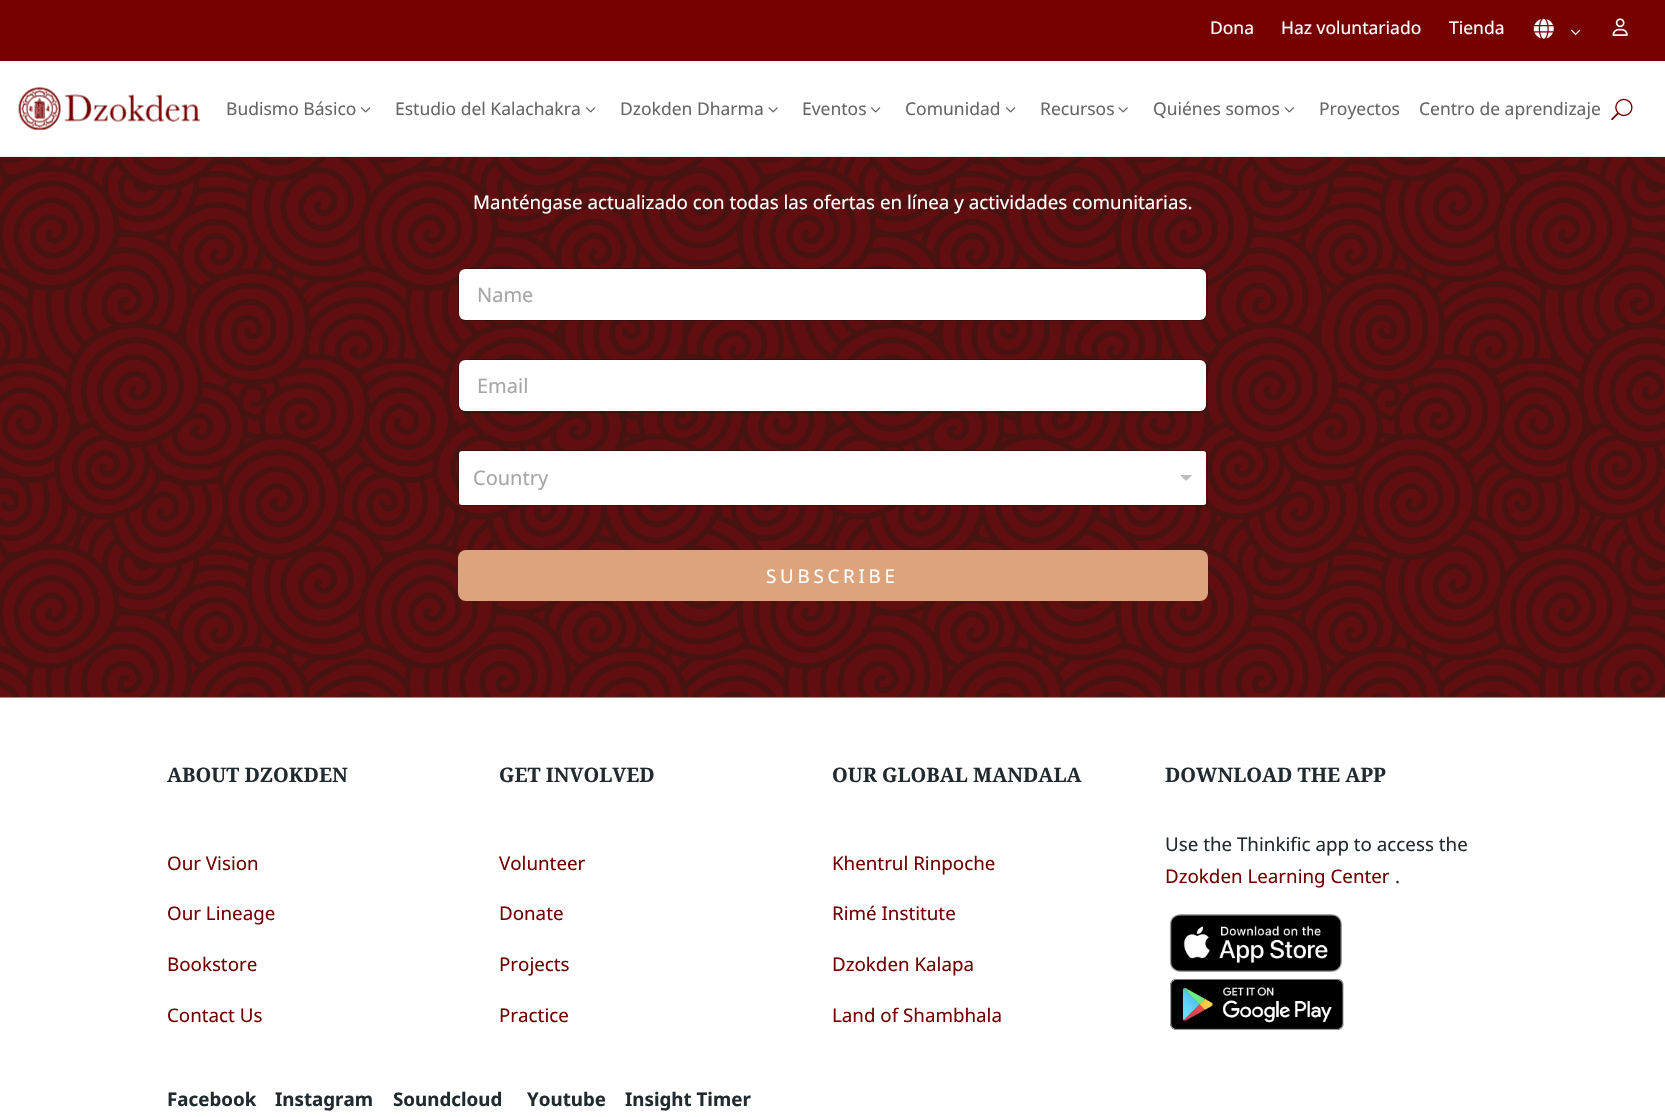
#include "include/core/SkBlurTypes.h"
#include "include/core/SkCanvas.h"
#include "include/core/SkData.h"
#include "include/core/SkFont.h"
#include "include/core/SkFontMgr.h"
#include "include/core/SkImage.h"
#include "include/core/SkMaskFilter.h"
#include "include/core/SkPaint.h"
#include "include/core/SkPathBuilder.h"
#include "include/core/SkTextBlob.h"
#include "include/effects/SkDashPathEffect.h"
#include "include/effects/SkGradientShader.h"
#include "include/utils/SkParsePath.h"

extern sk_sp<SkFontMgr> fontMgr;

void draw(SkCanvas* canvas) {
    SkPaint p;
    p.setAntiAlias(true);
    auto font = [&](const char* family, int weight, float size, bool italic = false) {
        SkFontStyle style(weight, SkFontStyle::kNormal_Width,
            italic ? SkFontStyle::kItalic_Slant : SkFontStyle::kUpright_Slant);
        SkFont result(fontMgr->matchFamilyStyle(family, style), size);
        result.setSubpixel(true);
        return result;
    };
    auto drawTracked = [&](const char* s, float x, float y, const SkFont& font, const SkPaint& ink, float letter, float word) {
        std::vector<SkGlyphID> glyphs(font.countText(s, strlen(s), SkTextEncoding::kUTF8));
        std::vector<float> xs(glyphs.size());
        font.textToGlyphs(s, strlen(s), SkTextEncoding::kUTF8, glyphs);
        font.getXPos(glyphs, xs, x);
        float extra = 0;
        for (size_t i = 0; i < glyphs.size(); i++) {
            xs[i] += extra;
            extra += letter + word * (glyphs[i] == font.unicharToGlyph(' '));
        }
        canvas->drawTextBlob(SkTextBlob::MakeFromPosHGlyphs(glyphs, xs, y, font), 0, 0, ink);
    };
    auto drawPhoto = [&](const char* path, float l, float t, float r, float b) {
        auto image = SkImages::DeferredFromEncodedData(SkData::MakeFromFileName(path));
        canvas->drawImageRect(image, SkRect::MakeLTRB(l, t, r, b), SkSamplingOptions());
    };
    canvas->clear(0xFFFFFFFF);
    p.setColor(0xFFEEEEEE);
    canvas->drawRect(SkRect::MakeLTRB(0, 156, 1665, 157), p);
    p.setColor(0xFF770000);
    canvas->drawRect(SkRect::MakeLTRB(0, 0, 1665, 61), p);
    auto font1 = font("Noto Sans", 400, 17.5f);
    p.setColor(0xFFFFFFFF);
    {
        const struct { const char* s; float x, y; } items[] = {
            {"Dona", 1210, 34},
            {"Haz voluntariado", 1281, 34},
            {"Tienda", 1449, 34},
        };
        for (auto [s, x, y] : items) {
            canvas->drawString(s, x, y, font1, p);
        }
    }
    drawPhoto("media/1.png", 1533, 18, 1554, 39);
    drawPhoto("media/2.png", 1571, 29, 1581, 35);
    drawPhoto("media/3.png", 1612, 18, 1628, 36);
    drawPhoto("media/4.png", 18, 87, 200, 130);
    p.setColor(0xFF666666);
    canvas->drawString("Budismo Básico", 226, 115, font1, p);
    drawPhoto("media/5.png", 361, 107, 371, 113);
    canvas->drawString("Estudio del Kalachakra", 395, 115, font1, p);
    drawPhoto("media/5.png", 586, 107, 596, 113);
    canvas->drawString("Dzokden Dharma", 620, 115, font1, p);
    drawPhoto("media/6.png", 768, 107, 778, 113);
    canvas->drawString("Eventos", 802, 115, font1, p);
    drawPhoto("media/5.png", 871, 107, 881, 113);
    canvas->drawString("Comunidad", 905, 115, font1, p);
    drawPhoto("media/5.png", 1006, 107, 1016, 113);
    canvas->drawString("Recursos", 1040, 115, font1, p);
    drawPhoto("media/6.png", 1118, 107, 1128, 113);
    canvas->drawString("Quiénes somos", 1153, 115, font1, p);
    drawPhoto("media/7.png", 1284, 107, 1294, 113);
    canvas->drawString("Proyectos", 1319, 115, font1, p);
    canvas->drawString("Centro de aprendizaje", 1419, 115, font1, p);
    drawPhoto("media/8.png", 1611, 98, 1633, 121);
    drawPhoto("media/9.png", 0, 157, 1665, 698);
    auto font2 = font("Noto Sans", 400, 18.75f);
    p.setColor(0xFFFFFFFF);
    canvas->drawString("Manténgase actualizado con todas las ofertas en línea y actividades comunitarias.", 473, 209, font2, p);
    canvas->drawRoundRect(SkRect::MakeLTRB(459, 269, 1206, 320), 6, 6, p);
    p.setStyle(SkPaint::kStroke_Style);
    p.setStrokeWidth(1);
    p.setColor(0x40000000);
    canvas->drawRoundRect(SkRect::MakeLTRB(458.5f, 268.5f, 1207.5f, 320.5f), 7.5f, 7.5f, p);
    auto font3 = font("Noto Sans", 400, 20);
    p.setStyle(SkPaint::kFill_Style);
    p.setColor(0xFFA6A6A6);
    canvas->drawString("Name", 477, 302, font3, p);
    p.setColor(0xFFFFFFFF);
    canvas->drawRoundRect(SkRect::MakeLTRB(459, 360, 1206, 411), 6, 6, p);
    p.setStyle(SkPaint::kStroke_Style);
    p.setColor(0x40000000);
    canvas->drawRoundRect(SkRect::MakeLTRB(458.5f, 359.5f, 1207.5f, 412.5f), 7.5f, 7.5f, p);
    p.setStyle(SkPaint::kFill_Style);
    p.setColor(0xFFA6A6A6);
    canvas->drawString("Email", 477, 393, font3, p);
    p.setColor(0xFFFFFFFF);
    canvas->drawRoundRect(SkRect::MakeLTRB(459, 451, 1206, 505), 2.5f, 2.5f, p);
    p.setStyle(SkPaint::kStroke_Style);
    p.setColor(0x40000000);
    canvas->drawRoundRect(SkRect::MakeLTRB(458.5f, 450.5f, 1207.5f, 505.5f), 3.5f, 3.5f, p);
    p.setStyle(SkPaint::kFill_Style);
    p.setColor(0xFFA6A6A6);
    canvas->drawString("Country", 473, 485, font3, p);
    p.setColor(0xFFBFBFBF);
    canvas->drawPath(SkPathBuilder().moveTo(1180, 475).lineTo(1192.5f, 475).lineTo(1186, 481).close().detach(), p);
    p.setColor(0xFFDCA47D);
    canvas->drawRoundRect(SkRect::MakeLTRB(458, 550, 1208, 601), 8, 8, p);
    p.setColor(0xFFFFFFFF);
    drawTracked("SUBSCRIBE", 766, 583, font2, p, 3.75f, 0);
    auto font4 = font("Noto Serif", 700, 20);
    p.setColor(0xFF212A2F);
    canvas->drawString("ABOUT DZOKDEN", 167, 782, font4, p);
    p.setColor(0xFF720000);
    {
        const struct { const char* s; float x, y; } items[] = {
            {"Our Vision", 167, 870},
            {"Our Lineage", 167, 920},
            {"Bookstore", 167, 971},
            {"Contact Us", 167, 1022},
        };
        for (auto [s, x, y] : items) {
            canvas->drawString(s, x, y, font2, p);
        }
    }
    p.setColor(0xFF212A2F);
    canvas->drawString("GET INVOLVED", 499, 782, font4, p);
    p.setColor(0xFF720000);
    {
        const struct { const char* s; float x, y; } items[] = {
            {"Volunteer", 499, 870},
            {"Donate", 499, 920},
            {"Projects", 499, 971},
            {"Practice", 499, 1022},
        };
        for (auto [s, x, y] : items) {
            canvas->drawString(s, x, y, font2, p);
        }
    }
    p.setColor(0xFF212A2F);
    canvas->drawString("OUR GLOBAL MANDALA", 832, 782, font4, p);
    p.setColor(0xFF720000);
    {
        const struct { const char* s; float x, y; } items[] = {
            {"Khentrul Rinpoche", 832, 870},
            {"Rimé Institute", 832, 920},
            {"Dzokden Kalapa", 832, 971},
            {"Land of Shambhala", 832, 1022},
        };
        for (auto [s, x, y] : items) {
            canvas->drawString(s, x, y, font2, p);
        }
    }
    p.setColor(0xFF212A2F);
    canvas->drawString("DOWNLOAD THE APP", 1165, 782, font4, p);
    canvas->drawString("Use the Thinkific app to access the", 1165, 851, font2, p);
    p.setColor(0xFF720000);
    canvas->drawString("Dzokden Learning Center", 1165, 883, font2, p);
    p.setColor(0xFF212A2F);
    canvas->drawString(".", 1395, 883, font2, p);
    drawPhoto("media/10.png", 1169, 914, 1342, 972);
    drawPhoto("media/11.png", 1170, 979, 1344, 1030);
    auto font5 = font("Noto Sans", 700, 18.75f);
    {
        const struct { const char* s; float x, y; } items[] = {
            {"Facebook", 167, 1106},
            {"Instagram", 275, 1106},
            {"Soundcloud", 393, 1106},
            {"Youtube", 527, 1106},
            {"Insight Timer", 625, 1106},
        };
        for (auto [s, x, y] : items) {
            canvas->drawString(s, x, y, font5, p);
        }
    }
}
